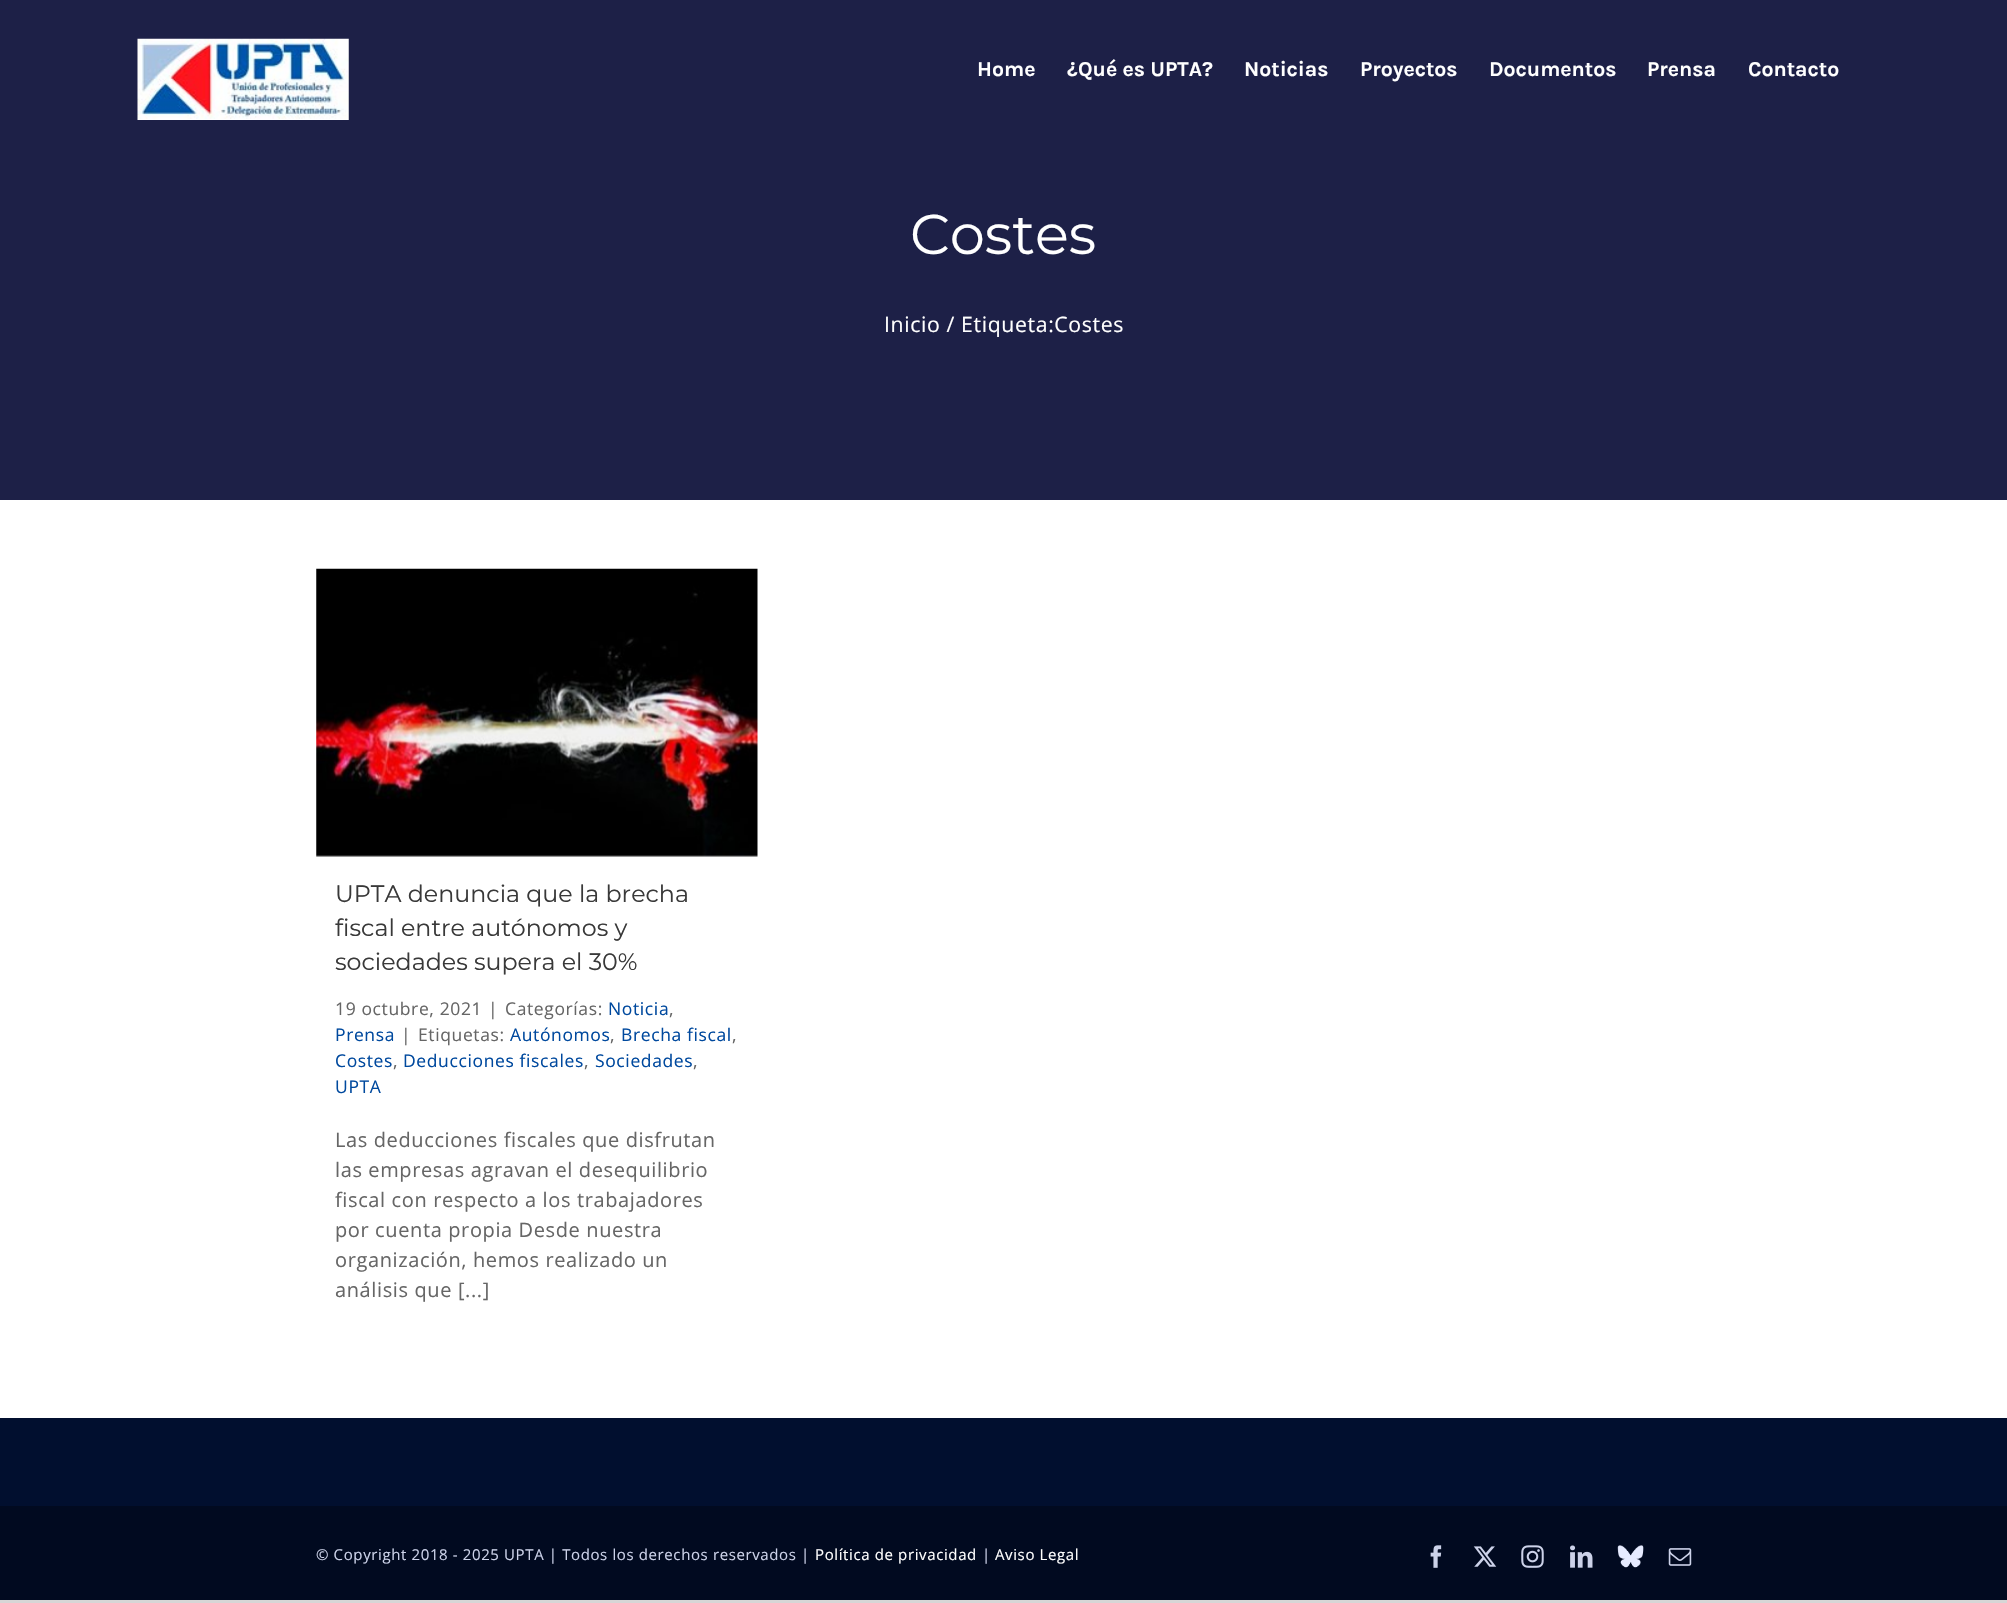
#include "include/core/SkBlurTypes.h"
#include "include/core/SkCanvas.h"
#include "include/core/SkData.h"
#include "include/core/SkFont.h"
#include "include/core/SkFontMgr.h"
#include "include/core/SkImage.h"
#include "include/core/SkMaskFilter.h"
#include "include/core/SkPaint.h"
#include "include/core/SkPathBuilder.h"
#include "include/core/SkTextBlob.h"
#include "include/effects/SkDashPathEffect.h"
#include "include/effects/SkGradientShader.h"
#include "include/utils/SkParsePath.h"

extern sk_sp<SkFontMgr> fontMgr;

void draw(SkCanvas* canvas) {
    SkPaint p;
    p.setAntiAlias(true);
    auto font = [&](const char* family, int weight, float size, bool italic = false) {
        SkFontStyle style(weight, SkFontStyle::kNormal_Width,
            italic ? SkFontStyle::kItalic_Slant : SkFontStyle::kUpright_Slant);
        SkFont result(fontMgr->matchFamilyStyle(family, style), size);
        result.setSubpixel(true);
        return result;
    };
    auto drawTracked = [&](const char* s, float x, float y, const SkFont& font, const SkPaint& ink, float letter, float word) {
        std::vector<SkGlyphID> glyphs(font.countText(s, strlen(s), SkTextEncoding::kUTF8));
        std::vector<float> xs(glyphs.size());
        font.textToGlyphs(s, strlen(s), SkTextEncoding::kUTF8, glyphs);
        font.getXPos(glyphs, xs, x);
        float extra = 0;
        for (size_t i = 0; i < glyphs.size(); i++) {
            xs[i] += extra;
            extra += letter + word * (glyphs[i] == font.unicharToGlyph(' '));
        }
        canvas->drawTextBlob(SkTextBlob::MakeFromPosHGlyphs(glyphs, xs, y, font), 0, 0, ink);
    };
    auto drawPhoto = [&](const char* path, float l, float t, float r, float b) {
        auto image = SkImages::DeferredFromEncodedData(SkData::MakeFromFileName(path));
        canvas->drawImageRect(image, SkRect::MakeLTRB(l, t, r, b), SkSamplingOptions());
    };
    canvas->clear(0xFFD7D6D6);
    p.setColor(0xFFFFFFFF);
    canvas->drawRect(SkRect::MakeLTRB(0, 500, 2007, 1418), p);
    p.setColor(0xFF1D2047);
    canvas->drawRect(SkRect::MakeLTRB(0, 0, 2007, 500), p);
    drawPhoto("media/1.png", 137, 38, 349, 120);
    auto font1 = font("Karla", 700, 21.25f);
    p.setColor(0xFFFFFFFF);
    {
        const struct { const char* s; float x, y; } items[] = {
            {"Home", 977, 76},
            {"¿Qué es UPTA?", 1067, 76},
            {"Noticias", 1244, 76},
            {"Proyectos", 1360, 76},
            {"Documentos", 1489, 76},
            {"Prensa", 1647, 76},
            {"Contacto", 1748, 76},
        };
        for (auto [s, x, y] : items) {
            canvas->drawString(s, x, y, font1, p);
        }
    }
    auto font2 = font("Montserrat", 100, 56);
    canvas->drawString("Costes", 910, 254, font2, p);
    auto font3 = font("Open Sans", 400, 21.25f);
    drawTracked("Inicio / Etiqueta:Costes", 884, 332, font3, p, 0.62f, 0);
    drawPhoto("media/2.png", 316, 568, 758, 857);
    auto font4 = font("Montserrat", 100, 23.75f);
    p.setColor(0xFF393939);
    {
        const struct { const char* s; float x, y; } items[] = {
            {"UPTA denuncia que la brecha", 335, 902},
            {"fiscal entre autónomos y", 335, 936},
            {"sociedades supera el 30%", 335, 970},
        };
        for (auto [s, x, y] : items) {
            canvas->drawString(s, x, y, font4, p);
        }
    }
    auto font5 = font("Open Sans", 400, 17.5f);
    p.setColor(0xFF666666);
    {
        const struct { const char* s; float x, y; } items[] = {
            {"19 octubre, 2021", 335, 1015},
            {"|", 488, 1015},
            {"Categorías:", 505, 1015},
        };
        for (auto [s, x, y] : items) {
            drawTracked(s, x, y, font5, p, 0.62f, 0);
        }
    }
    p.setColor(0xFF00499E);
    drawTracked("Noticia", 608, 1015, font5, p, 0.62f, 0);
    p.setColor(0xFF666666);
    drawTracked(",", 669, 1015, font5, p, 0.62f, 0);
    p.setColor(0xFF00499E);
    drawTracked("Prensa", 335, 1041, font5, p, 0.62f, 0);
    p.setColor(0xFF666666);
    drawTracked("|", 401, 1041, font5, p, 0.62f, 0);
    drawTracked("Etiquetas:", 418, 1041, font5, p, 0.62f, 0);
    p.setColor(0xFF00499E);
    drawTracked("Autónomos", 510, 1041, font5, p, 0.62f, 0);
    p.setColor(0xFF666666);
    drawTracked(",", 610, 1041, font5, p, 0.62f, 0);
    p.setColor(0xFF00499E);
    drawTracked("Brecha fiscal", 621, 1041, font5, p, 0.62f, 0);
    p.setColor(0xFF666666);
    drawTracked(",", 732, 1041, font5, p, 0.62f, 0);
    p.setColor(0xFF00499E);
    drawTracked("Costes", 335, 1067, font5, p, 0.62f, 0);
    p.setColor(0xFF666666);
    drawTracked(",", 393, 1067, font5, p, 0.62f, 0);
    p.setColor(0xFF00499E);
    drawTracked("Deducciones fiscales", 403, 1067, font5, p, 0.62f, 0);
    p.setColor(0xFF666666);
    drawTracked(",", 584, 1067, font5, p, 0.62f, 0);
    p.setColor(0xFF00499E);
    drawTracked("Sociedades", 595, 1067, font5, p, 0.62f, 0);
    p.setColor(0xFF666666);
    drawTracked(",", 693, 1067, font5, p, 0.62f, 0);
    p.setColor(0xFF00499E);
    drawTracked("UPTA", 335, 1093, font5, p, 0.62f, 0);
    auto font6 = font("Open Sans", 400, 20);
    p.setColor(0xFF666666);
    {
        const struct { const char* s; float x, y; } items[] = {
            {"Las deducciones fiscales que disfrutan", 335, 1147},
            {"las empresas agravan el desequilibrio", 335, 1177},
            {"fiscal con respecto a los trabajadores", 335, 1207},
            {"por cuenta propia Desde nuestra", 335, 1237},
            {"organización, hemos realizado un", 335, 1267},
            {"análisis que [...]", 335, 1297},
        };
        for (auto [s, x, y] : items) {
            drawTracked(s, x, y, font6, p, 0.62f, 0);
        }
    }
    p.setColor(0xFF010F2F);
    canvas->drawRect(SkRect::MakeLTRB(0, 1418, 2007, 1506), p);
    p.setColor(0xFF010A20);
    canvas->drawRect(SkRect::MakeLTRB(0, 1506, 2007, 1600), p);
    auto font7 = font("Open Sans", 400, 15);
    p.setColor(0xFFCCD2E9);
    drawTracked("© Copyright 2018 - 2025 UPTA | Todos los derechos reservados |", 316, 1560, font7, p, 0.62f, 0);
    p.setColor(0xFFFFFFFF);
    drawTracked("Política de privacidad", 815, 1560, font7, p, 0.62f, 0);
    p.setColor(0xFFCCD2E9);
    drawTracked("|", 982, 1560, font7, p, 0.62f, 0);
    p.setColor(0xFFFFFFFF);
    drawTracked("Aviso Legal", 995, 1560, font7, p, 0.62f, 0);
    drawPhoto("media/3.png", 1430, 1545, 1442, 1568);
    drawPhoto("media/4.png", 1473, 1546, 1497, 1567);
    drawPhoto("media/5.png", 1521, 1545, 1544, 1568);
    drawPhoto("media/6.png", 1570, 1545, 1593, 1568);
    drawPhoto("media/7.png", 1617, 1545, 1644, 1568);
    drawPhoto("media/8.png", 1668, 1548, 1692, 1566);
}
